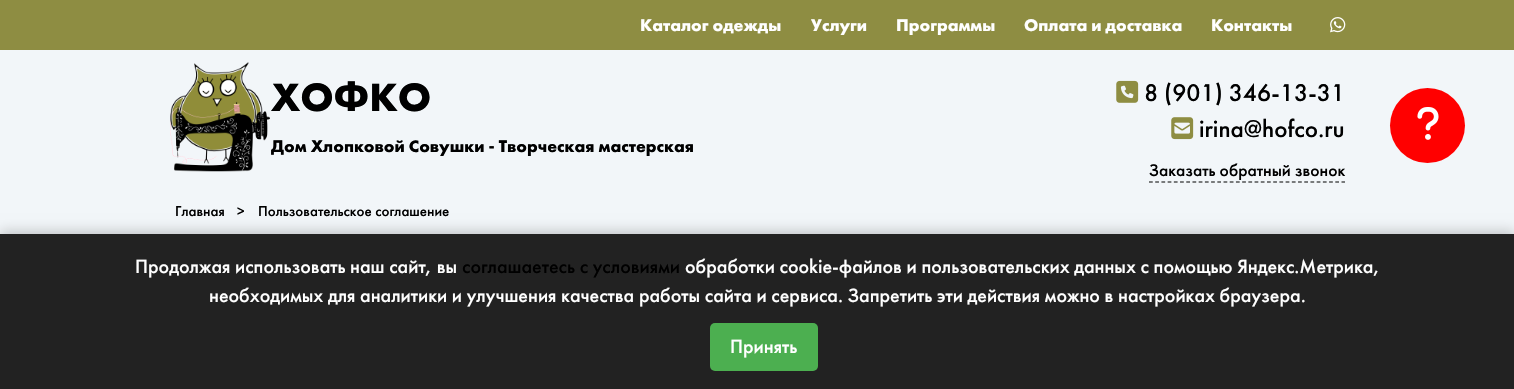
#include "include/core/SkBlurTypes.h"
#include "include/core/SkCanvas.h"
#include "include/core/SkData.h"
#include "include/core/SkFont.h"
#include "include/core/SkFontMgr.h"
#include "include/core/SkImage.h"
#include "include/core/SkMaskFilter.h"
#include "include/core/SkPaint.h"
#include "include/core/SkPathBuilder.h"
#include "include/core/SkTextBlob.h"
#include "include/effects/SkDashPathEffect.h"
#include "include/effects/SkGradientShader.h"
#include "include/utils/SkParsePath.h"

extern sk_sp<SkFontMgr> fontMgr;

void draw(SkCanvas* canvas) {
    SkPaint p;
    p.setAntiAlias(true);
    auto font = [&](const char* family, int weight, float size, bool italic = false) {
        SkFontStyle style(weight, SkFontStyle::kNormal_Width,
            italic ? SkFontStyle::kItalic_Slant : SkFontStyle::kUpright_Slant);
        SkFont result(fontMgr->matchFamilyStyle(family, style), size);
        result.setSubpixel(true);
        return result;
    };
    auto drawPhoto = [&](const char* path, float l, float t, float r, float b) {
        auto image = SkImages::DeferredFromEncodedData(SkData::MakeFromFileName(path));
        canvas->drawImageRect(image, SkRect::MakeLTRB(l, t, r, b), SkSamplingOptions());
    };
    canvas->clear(0xFFF2F6F9);
    p.setColor(0xFF8E8D42);
    canvas->drawRect(SkRect::MakeLTRB(0, 0, 1514, 50), p);
    auto font1 = font("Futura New", 700, 17.5f);
    p.setColor(0xFFFFFFFF);
    {
        const struct { const char* s; float x, y; } items[] = {
            {"Каталог одежды", 640, 31},
            {"Услуги", 811, 31},
            {"Программы", 896, 31},
            {"Оплата и доставка", 1024, 31},
            {"Контакты", 1211, 31},
        };
        for (auto [s, x, y] : items) {
            canvas->drawString(s, x, y, font1, p);
        }
    }
    drawPhoto("media/1.png", 1330, 17, 1346, 33);
    drawPhoto("media/2.png", 170, 62, 270, 172);
    auto font2 = font("Futura New", 700, 41);
    p.setColor(0xFF000000);
    canvas->drawString("ХОФКО", 271, 111, font2, p);
    canvas->drawString("Дом Хлопковой Совушки - Творческая мастерская", 271, 152, font1, p);
    drawPhoto("media/3.png", 1116, 80, 1139, 103);
    auto font3 = font("Futura New", 500, 25);
    canvas->drawString("8 (901) 346-13-31", 1144, 101, font3, p);
    drawPhoto("media/4.png", 1171, 117, 1194, 140);
    canvas->drawString("irina@hofco.ru", 1199, 137, font3, p);
    auto font4 = font("Futura New", 500, 17.5f);
    canvas->drawString("Заказать обратный звонок", 1149, 176, font4, p);
    p.setStyle(SkPaint::kStroke_Style);
    p.setStrokeWidth(1.2f);
    p.setPathEffect(SkDashPathEffect::Make({{3.75f, 2.46f}}, 0));
    canvas->drawPath(SkPathBuilder().moveTo(1149, 182).lineTo(1345, 182).detach(), p);
    p.setPathEffect(nullptr);
    p.setStyle(SkPaint::kFill_Style);
    p.setColor(0xFFFF0000);
    canvas->drawCircle(1427.5f, 125.5f, 37.5f, p);
    drawPhoto("media/5.png", 1417, 107, 1439, 140);
    auto font5 = font("Futura New", 500, 15);
    p.setColor(0xFF000000);
    {
        const struct { const char* s; float x, y; } items[] = {
            {"Главная", 175, 216},
            {">", 237, 216},
            {"Пользовательское соглашение", 258, 216},
        };
        for (auto [s, x, y] : items) {
            canvas->drawString(s, x, y, font5, p);
        }
    }
    p.setColor(0x33000000);
    p.setMaskFilter(SkMaskFilter::MakeBlur(kNormal_SkBlurStyle, 6));
    canvas->drawRect(SkRect::MakeLTRB(0, 231, 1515, 388), p);
    p.setMaskFilter(nullptr);
    p.setColor(0xFF222222);
    canvas->drawRect(SkRect::MakeLTRB(0, 234, 1514, 389), p);
    auto font6 = font("Futura New", 500, 20);
    p.setColor(0xFFFFFFFF);
    canvas->drawString("Продолжая использовать наш сайт, вы", 135, 273, font6, p);
    p.setColor(0xFF000000);
    canvas->drawString("соглашаетесь с условиями", 462, 273, font6, p);
    p.setColor(0xFFFFFFFF);
    canvas->drawString("обработки cookie-файлов и пользовательских данных с помощью Яндекс.Метрика,", 685, 273, font6, p);
    canvas->drawString("необходимых для аналитики и улучшения качества работы сайта и сервиса. Запретить эти действия можно в настройках браузера.", 209, 302, font6, p);
    p.setColor(0xFF4CAF50);
    canvas->drawRoundRect(SkRect::MakeLTRB(710, 323, 818, 371), 5, 5, p);
    p.setColor(0xFFFFFFFF);
    canvas->drawString("Принять", 730, 353, font6, p);
}
